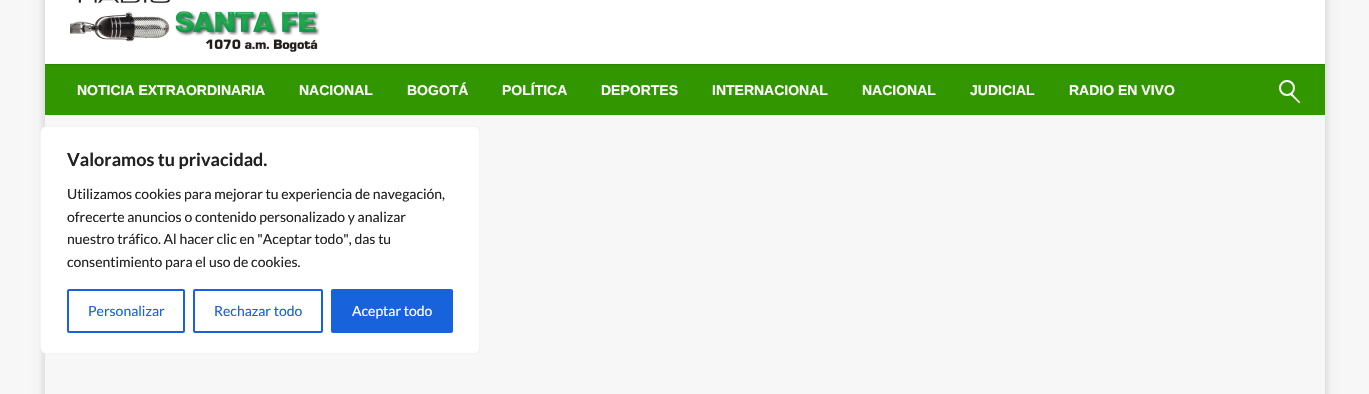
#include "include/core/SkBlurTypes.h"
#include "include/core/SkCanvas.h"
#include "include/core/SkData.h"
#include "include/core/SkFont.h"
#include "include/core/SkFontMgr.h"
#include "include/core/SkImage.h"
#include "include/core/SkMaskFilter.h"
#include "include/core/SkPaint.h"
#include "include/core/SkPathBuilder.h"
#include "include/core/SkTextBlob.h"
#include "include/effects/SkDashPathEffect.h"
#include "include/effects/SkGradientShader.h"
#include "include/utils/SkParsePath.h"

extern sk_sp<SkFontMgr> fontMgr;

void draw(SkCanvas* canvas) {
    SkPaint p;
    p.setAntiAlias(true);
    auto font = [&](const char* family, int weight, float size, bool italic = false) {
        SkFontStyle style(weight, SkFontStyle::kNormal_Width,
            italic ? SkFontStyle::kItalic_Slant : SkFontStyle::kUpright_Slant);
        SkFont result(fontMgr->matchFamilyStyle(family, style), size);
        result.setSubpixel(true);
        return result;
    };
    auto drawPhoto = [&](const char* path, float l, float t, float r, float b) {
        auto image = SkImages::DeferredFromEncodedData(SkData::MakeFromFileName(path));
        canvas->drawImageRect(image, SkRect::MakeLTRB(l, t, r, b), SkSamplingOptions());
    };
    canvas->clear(0xFFF7F7F7);
    canvas->save();
    canvas->clipPath(SkPathBuilder(SkPathFillType::kEvenOdd).moveTo(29, 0).lineTo(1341, 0).lineTo(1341, 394).lineTo(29, 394).close().moveTo(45, -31).lineTo(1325, -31).lineTo(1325, 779).lineTo(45, 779).close().detach(), true);
    p.setColor(0x17000000);
    p.setMaskFilter(SkMaskFilter::MakeBlur(kNormal_SkBlurStyle, 5));
    canvas->drawRect(SkRect::MakeLTRB(45, -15, 1325, 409), p);
    p.setMaskFilter(nullptr);
    canvas->restore();
    canvas->save();
    canvas->clipPath(SkPathBuilder(SkPathFillType::kEvenOdd).moveTo(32, 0).lineTo(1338, 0).lineTo(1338, 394).lineTo(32, 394).close().moveTo(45, -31).lineTo(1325, -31).lineTo(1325, 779).lineTo(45, 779).close().detach(), true);
    p.setColor(0x1A000000);
    p.setMaskFilter(SkMaskFilter::MakeBlur(kNormal_SkBlurStyle, 4));
    canvas->drawRect(SkRect::MakeLTRB(45, -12, 1325, 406), p);
    p.setMaskFilter(nullptr);
    canvas->restore();
    p.setColor(0xFFFFFFFF);
    canvas->drawRect(SkRect::MakeLTRB(45, 0, 1325, 64), p);
    drawPhoto("media/1.png", 70, 0, 320, 52);
    p.setColor(0xFF329600);
    canvas->drawRect(SkRect::MakeLTRB(45, 65, 1325, 115), p);
    p.setColor(0xFF2C8400);
    canvas->drawRect(SkRect::MakeLTRB(45, 64, 1325, 65), p);
    auto font1 = font("Liberation Sans", 700, 14);
    p.setColor(0xFFFFFFFF);
    {
        const struct { const char* s; float x, y; } items[] = {
            {"NOTICIA EXTRAORDINARIA", 77, 95},
            {"NACIONAL", 299, 95},
            {"BOGOTÁ", 407, 95},
            {"POLÍTICA", 502, 95},
            {"DEPORTES", 601, 95},
            {"INTERNACIONAL", 712, 95},
            {"NACIONAL", 862, 95},
            {"JUDICIAL", 970, 95},
            {"RADIO EN VIVO", 1069, 95},
        };
        for (auto [s, x, y] : items) {
            canvas->drawString(s, x, y, font1, p);
        }
    }
    p.setStyle(SkPaint::kStroke_Style);
    p.setStrokeWidth(2);
    canvas->drawCircle(1287, 88, 7, p);
    p.setStyle(SkPaint::kFill_Style);
    canvas->drawPath(SkPathBuilder().moveTo(1292, 93.5f).lineTo(1300, 102).cubicTo(1300.5f, 103, 1299.5f, 103.5f, 1299, 103).lineTo(1290.5f, 95).cubicTo(1290, 94, 1291, 93, 1292, 93.5f).close().detach(), p);
    canvas->save();
    canvas->clipPath(SkPathBuilder().moveTo(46, 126).lineTo(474, 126).cubicTo(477.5f, 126, 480, 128.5f, 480, 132).lineTo(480, 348).cubicTo(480, 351.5f, 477.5f, 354, 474, 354).lineTo(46, 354).cubicTo(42.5f, 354, 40, 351.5f, 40, 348).lineTo(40, 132).cubicTo(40, 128.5f, 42.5f, 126, 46, 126).close().detach(), true);
    p.setColor(0x4DACABAB);
    p.setMaskFilter(SkMaskFilter::MakeBlur(kNormal_SkBlurStyle, 5));
    canvas->drawRoundRect(SkRect::MakeLTRB(40, 125, 480, 353), 6, 6, p);
    p.setMaskFilter(nullptr);
    canvas->restore();
    p.setColor(0xFFFFFFFF);
    canvas->drawRoundRect(SkRect::MakeLTRB(40.5f, 126.5f, 479.5f, 353.5f), 5.5f, 5.5f, p);
    p.setStyle(SkPaint::kStroke_Style);
    p.setStrokeWidth(1);
    p.setColor(0xFFF4F4F4);
    canvas->drawRoundRect(SkRect::MakeLTRB(40.5f, 126.5f, 479.5f, 353.5f), 5.5f, 5.5f, p);
    auto font2 = font("Lato", 700, 18);
    p.setStyle(SkPaint::kFill_Style);
    p.setColor(0xFF212121);
    canvas->drawString("Valoramos tu privacidad.", 67, 166, font2, p);
    auto font3 = font("Lato", 400, 14);
    {
        const struct { const char* s; float x, y; } items[] = {
            {"Utilizamos cookies para mejorar tu experiencia de navegación,", 67, 199},
            {"ofrecerte anuncios o contenido personalizado y analizar", 67, 222},
            {"nuestro tráfico. Al hacer clic en \"Aceptar todo\", das tu", 67, 244},
            {"consentimiento para el uso de cookies.", 67, 267},
        };
        for (auto [s, x, y] : items) {
            canvas->drawString(s, x, y, font3, p);
        }
    }
    p.setStyle(SkPaint::kStroke_Style);
    p.setStrokeWidth(2);
    p.setColor(0xFF1863DC);
    canvas->drawRoundRect(SkRect::MakeLTRB(68, 290, 184, 332), 1, 1, p);
    p.setStyle(SkPaint::kFill_Style);
    canvas->drawString("Personalizar", 88, 316, font3, p);
    p.setStyle(SkPaint::kStroke_Style);
    canvas->drawRoundRect(SkRect::MakeLTRB(194, 290, 322, 332), 1, 1, p);
    p.setStyle(SkPaint::kFill_Style);
    canvas->drawString("Rechazar todo", 214, 316, font3, p);
    canvas->drawRoundRect(SkRect::MakeLTRB(332, 290, 452, 332), 1, 1, p);
    p.setStyle(SkPaint::kStroke_Style);
    canvas->drawRoundRect(SkRect::MakeLTRB(332, 290, 452, 332), 1, 1, p);
    p.setStyle(SkPaint::kFill_Style);
    p.setColor(0xFFFFFFFF);
    canvas->drawString("Aceptar todo", 352, 316, font3, p);
}
